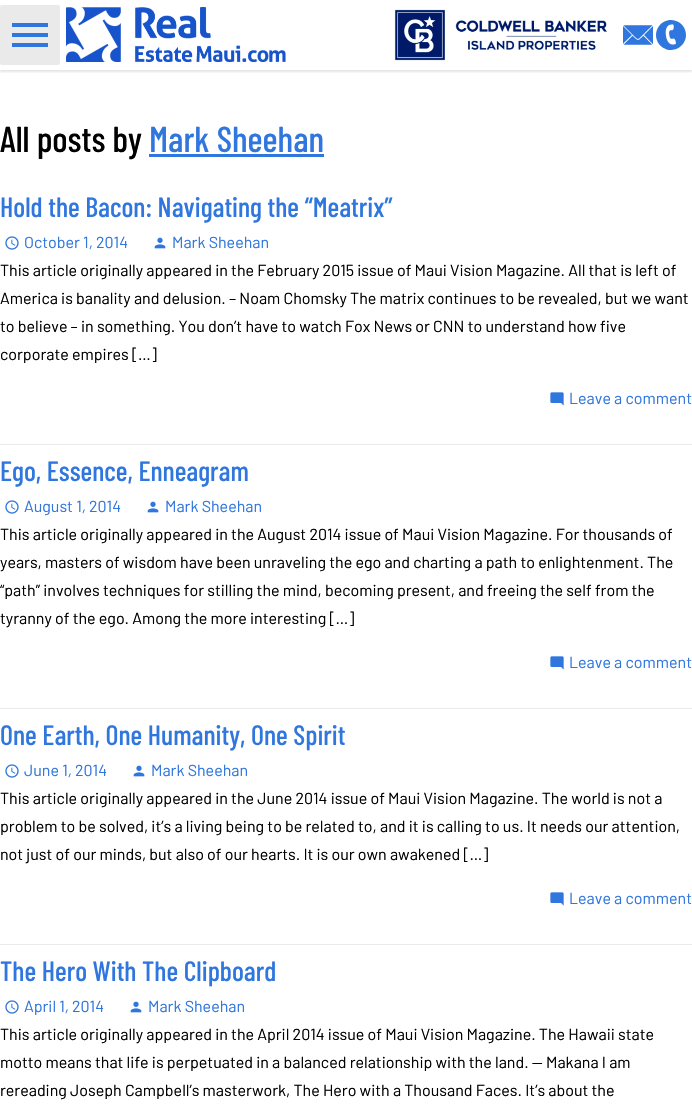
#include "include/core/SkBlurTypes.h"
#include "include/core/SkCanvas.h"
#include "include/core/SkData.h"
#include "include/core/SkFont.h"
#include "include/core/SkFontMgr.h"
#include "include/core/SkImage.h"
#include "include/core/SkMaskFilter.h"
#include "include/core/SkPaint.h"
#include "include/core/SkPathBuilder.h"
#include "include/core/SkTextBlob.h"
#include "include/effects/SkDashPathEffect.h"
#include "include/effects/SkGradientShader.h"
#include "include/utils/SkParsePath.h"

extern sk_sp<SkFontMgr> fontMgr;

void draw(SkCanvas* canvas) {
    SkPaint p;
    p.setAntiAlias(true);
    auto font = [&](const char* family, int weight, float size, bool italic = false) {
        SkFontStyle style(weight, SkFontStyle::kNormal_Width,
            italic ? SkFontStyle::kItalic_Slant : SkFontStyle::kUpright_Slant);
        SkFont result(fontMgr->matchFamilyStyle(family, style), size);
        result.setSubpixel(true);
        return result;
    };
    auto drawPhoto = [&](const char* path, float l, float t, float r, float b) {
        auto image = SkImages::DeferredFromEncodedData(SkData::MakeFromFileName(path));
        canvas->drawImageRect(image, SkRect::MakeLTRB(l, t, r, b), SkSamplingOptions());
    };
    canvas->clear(0xFFFFFFFF);
    canvas->save();
    canvas->clipRect(SkRect::MakeLTRB(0, 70, 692, 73));
    p.setColor(0x1A000000);
    p.setMaskFilter(SkMaskFilter::MakeBlur(kNormal_SkBlurStyle, 1));
    canvas->drawRect(SkRect::MakeLTRB(0, 2, 692, 72), p);
    p.setMaskFilter(nullptr);
    canvas->restore();
    p.setColor(0xFFEAEAEA);
    canvas->drawRoundRect(SkRect::MakeLTRB(0, 5, 60, 65), 2, 2, p);
    drawPhoto("media/1.png", 12, 23, 48, 47);
    drawPhoto("media/2.png", 66, 7, 286, 62);
    drawPhoto("media/3.png", 394, 9, 607, 61);
    drawPhoto("media/4.png", 623, 25, 653, 45);
    drawPhoto("media/5.png", 656, 20, 686, 50);
    auto font1 = font("Barlow Condensed", 500, 36);
    p.setColor(0xFF000000);
    canvas->drawString("All posts by", 0, 152, font1, p);
    p.setColor(0xFF2F76DE);
    canvas->drawString("Mark Sheehan", 149, 152, font1, p);
    canvas->drawRect(SkRect::MakeLTRB(149, 154, 324, 157), p);
    auto font2 = font("Barlow Condensed", 500, 28);
    canvas->drawString("Hold the Bacon: Navigating the “Meatrix”", 0, 217, font2, p);
    drawPhoto("media/6.png", 5, 236, 19, 250);
    auto font3 = font("Barlow", 400, 16);
    canvas->drawString("October 1", 24, 248, font3, p);
    auto font4 = font("Barlow", 400, 16, true);
    canvas->drawString(",", 89, 248, font4, p);
    canvas->drawString("2014", 96, 248, font3, p);
    drawPhoto("media/7.png", 154, 237, 166, 249);
    canvas->drawString("Mark Sheehan", 172, 248, font3, p);
    p.setColor(0xFF000000);
    {
        const struct { const char* s; float x, y; } items[] = {
            {"This article originally appeared in the February 2015 issue of Maui Vision Magazine. All that is left of", 0, 276},
            {"America is banality and delusion. – Noam Chomsky The matrix continues to be revealed, but we want", 0, 304},
            {"to believe – in something. You don’t have to watch Fox News or CNN to understand how five", 0, 332},
            {"corporate empires […]", 0, 360},
        };
        for (auto [s, x, y] : items) {
            canvas->drawString(s, x, y, font3, p);
        }
    }
    drawPhoto("media/8.png", 550, 392, 564, 406);
    p.setColor(0xFF2F76DE);
    canvas->drawString("Leave a comment", 569, 404, font3, p);
    p.setColor(0xFFEAEAEA);
    canvas->drawRect(SkRect::MakeLTRB(0, 444, 692, 445), p);
    p.setColor(0xFF2F76DE);
    canvas->drawString("Ego, Essence, Enneagram", 0, 481, font2, p);
    drawPhoto("media/6.png", 5, 500, 19, 514);
    canvas->drawString("August 1", 24, 512, font3, p);
    canvas->drawString(",", 82, 512, font4, p);
    canvas->drawString("2014", 89, 512, font3, p);
    drawPhoto("media/7.png", 147, 501, 159, 513);
    canvas->drawString("Mark Sheehan", 165, 512, font3, p);
    p.setColor(0xFF000000);
    {
        const struct { const char* s; float x, y; } items[] = {
            {"This article originally appeared in the August 2014 issue of Maui Vision Magazine. For thousands of", 0, 540},
            {"years, masters of wisdom have been unraveling the ego and charting a path to enlightenment. The", 0, 568},
            {"“path” involves techniques for stilling the mind, becoming present, and freeing the self from the", 0, 596},
            {"tyranny of the ego. Among the more interesting […]", 0, 624},
        };
        for (auto [s, x, y] : items) {
            canvas->drawString(s, x, y, font3, p);
        }
    }
    drawPhoto("media/8.png", 550, 656, 564, 670);
    p.setColor(0xFF2F76DE);
    canvas->drawString("Leave a comment", 569, 668, font3, p);
    p.setColor(0xFFEAEAEA);
    canvas->drawRect(SkRect::MakeLTRB(0, 708, 692, 709), p);
    p.setColor(0xFF2F76DE);
    canvas->drawString("One Earth, One Humanity, One Spirit", 0, 745, font2, p);
    drawPhoto("media/6.png", 5, 764, 19, 778);
    canvas->drawString("June 1", 24, 776, font3, p);
    canvas->drawString(",", 68, 776, font4, p);
    canvas->drawString("2014", 75, 776, font3, p);
    drawPhoto("media/7.png", 133, 765, 145, 777);
    canvas->drawString("Mark Sheehan", 151, 776, font3, p);
    p.setColor(0xFF000000);
    {
        const struct { const char* s; float x, y; } items[] = {
            {"This article originally appeared in the June 2014 issue of Maui Vision Magazine. The world is not a", 0, 804},
            {"problem to be solved, it’s a living being to be related to, and it is calling to us. It needs our attention,", 0, 832},
            {"not just of our minds, but also of our hearts. It is our own awakened […]", 0, 860},
        };
        for (auto [s, x, y] : items) {
            canvas->drawString(s, x, y, font3, p);
        }
    }
    drawPhoto("media/8.png", 550, 892, 564, 906);
    p.setColor(0xFF2F76DE);
    canvas->drawString("Leave a comment", 569, 904, font3, p);
    p.setColor(0xFFEAEAEA);
    canvas->drawRect(SkRect::MakeLTRB(0, 944, 692, 945), p);
    p.setColor(0xFF2F76DE);
    canvas->drawString("The Hero With The Clipboard", 0, 981, font2, p);
    drawPhoto("media/6.png", 5, 1000, 19, 1014);
    canvas->drawString("April 1", 24, 1012, font3, p);
    canvas->drawString(",", 65, 1012, font4, p);
    canvas->drawString("2014", 72, 1012, font3, p);
    drawPhoto("media/7.png", 130, 1001, 142, 1013);
    canvas->drawString("Mark Sheehan", 148, 1012, font3, p);
    p.setColor(0xFF000000);
    {
        const struct { const char* s; float x, y; } items[] = {
            {"This article originally appeared in the April 2014 issue of Maui Vision Magazine. The Hawaii state", 0, 1040},
            {"motto means that life is perpetuated in a balanced relationship with the land. — Makana I am", 0, 1068},
            {"rereading Joseph Campbell’s masterwork, The Hero with a Thousand Faces. It’s about the", 0, 1096},
        };
        for (auto [s, x, y] : items) {
            canvas->drawString(s, x, y, font3, p);
        }
    }
}
